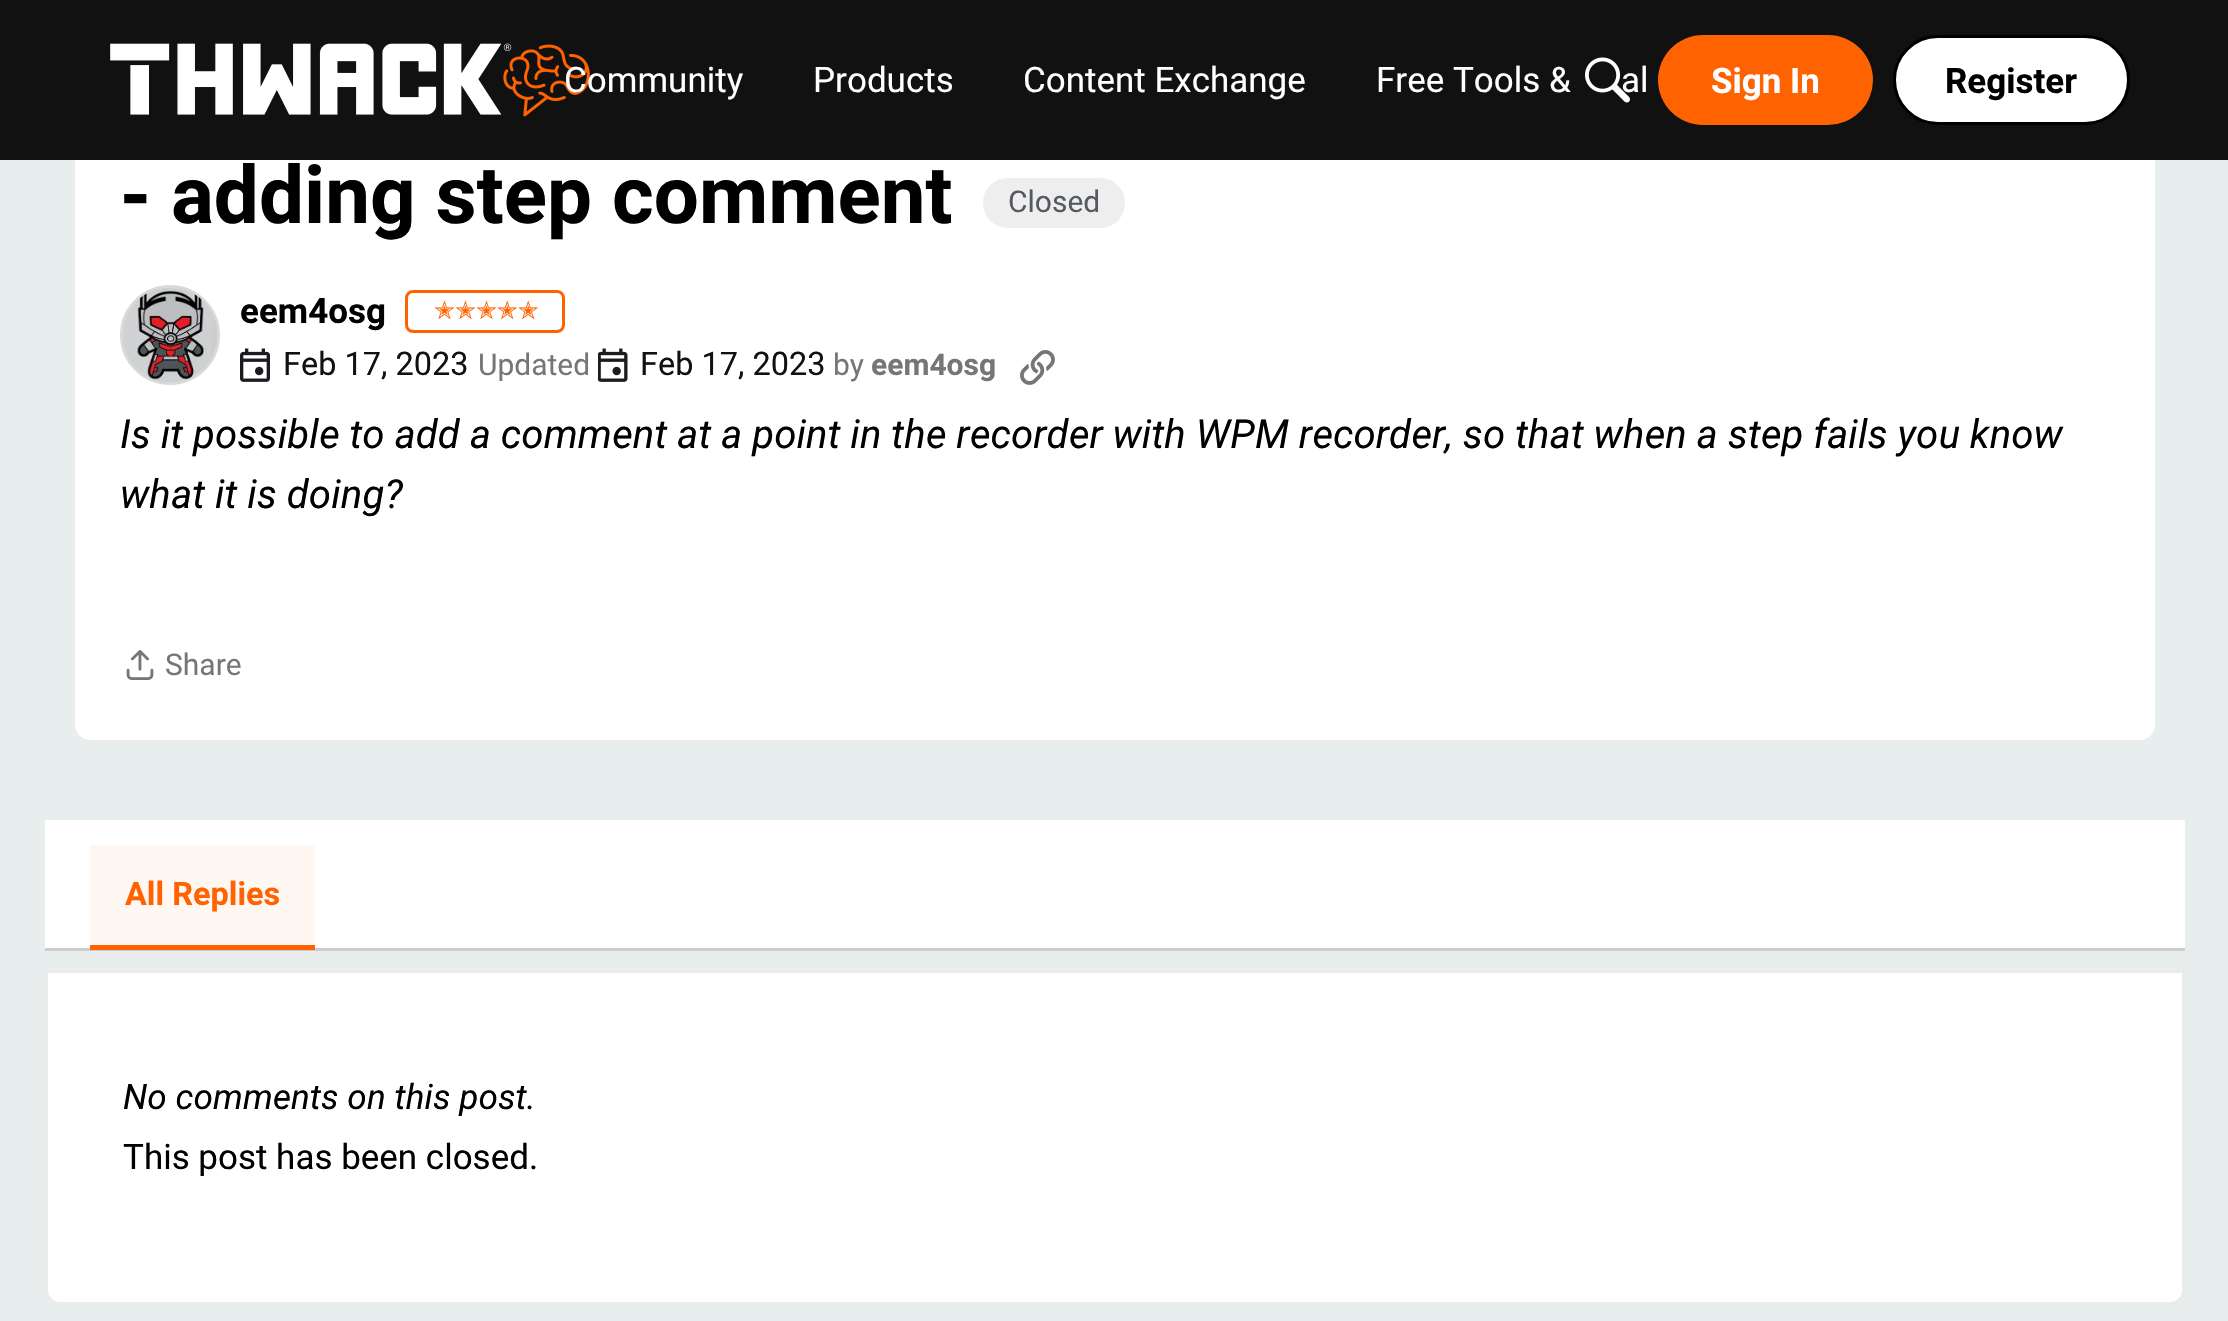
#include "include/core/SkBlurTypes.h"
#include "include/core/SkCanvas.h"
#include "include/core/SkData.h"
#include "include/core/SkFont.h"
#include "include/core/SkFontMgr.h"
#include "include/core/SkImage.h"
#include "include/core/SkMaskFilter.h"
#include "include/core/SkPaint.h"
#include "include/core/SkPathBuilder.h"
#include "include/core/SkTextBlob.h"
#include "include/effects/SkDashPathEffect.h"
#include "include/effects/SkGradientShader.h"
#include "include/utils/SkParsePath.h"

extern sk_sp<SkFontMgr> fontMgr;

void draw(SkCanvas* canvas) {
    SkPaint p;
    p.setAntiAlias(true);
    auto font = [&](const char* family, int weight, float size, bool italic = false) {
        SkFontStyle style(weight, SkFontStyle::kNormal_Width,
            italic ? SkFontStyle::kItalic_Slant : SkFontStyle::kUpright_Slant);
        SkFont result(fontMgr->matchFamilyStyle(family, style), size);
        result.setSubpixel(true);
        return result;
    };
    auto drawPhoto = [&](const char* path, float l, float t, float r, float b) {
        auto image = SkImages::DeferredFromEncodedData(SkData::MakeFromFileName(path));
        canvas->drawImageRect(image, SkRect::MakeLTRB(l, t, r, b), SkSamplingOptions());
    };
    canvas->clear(0xFFE8EDED);
    p.setColor(0xFFFFFFFF);
    canvas->drawRoundRect(SkRect::MakeLTRB(75, 20, 2155, 740), 15, 15, p);
    p.setColor(0xFF111111);
    canvas->drawRect(SkRect::MakeLTRB(0, 0, 2228, 160), p);
    drawPhoto("media/1.png", 110, 43, 590, 117);
    auto font1 = font("Roboto", 400, 35);
    p.setColor(0xFFFFFFFF);
    {
        const struct { const char* s; float x, y; } items[] = {
            {"Community", 564, 92},
            {"Products", 813, 92},
            {"Content Exchange", 1023, 92},
            {"Free Tools &", 1376, 92},
            {"al", 1621, 92},
        };
        for (auto [s, x, y] : items) {
            canvas->drawString(s, x, y, font1, p);
        }
    }
    drawPhoto("media/2.png", 1585, 57, 1630, 103);
    p.setColor(0xFFFF6200);
    canvas->drawRoundRect(SkRect::MakeLTRB(1658, 35, 1873, 125), 45, 45, p);
    auto font2 = font("Roboto", 700, 35);
    p.setColor(0xFFFFFFFF);
    canvas->drawString("Sign In", 1711, 93, font2, p);
    canvas->drawRoundRect(SkRect::MakeLTRB(1894.5f, 36.5f, 2128.5f, 123.5f), 43.5f, 43.5f, p);
    p.setStyle(SkPaint::kStroke_Style);
    p.setStrokeWidth(3);
    p.setColor(0xFF000000);
    canvas->drawRoundRect(SkRect::MakeLTRB(1894.5f, 36.5f, 2128.5f, 123.5f), 43.5f, 43.5f, p);
    p.setStyle(SkPaint::kFill_Style);
    canvas->drawString("Register", 1945, 93, font2, p);
    auto font3 = font("Roboto", 700, 80);
    canvas->drawString("- adding step comment", 120, 223, font3, p);
    p.setColor(0xFFEEEEEF);
    canvas->drawRoundRect(SkRect::MakeLTRB(984.5f, 179.5f, 1123.5f, 226.5f), 23.5f, 23.5f, p);
    p.setStyle(SkPaint::kStroke_Style);
    canvas->drawRoundRect(SkRect::MakeLTRB(984.5f, 179.5f, 1123.5f, 226.5f), 23.5f, 23.5f, p);
    auto font4 = font("Roboto", 400, 30);
    p.setStyle(SkPaint::kFill_Style);
    p.setColor(0xFF555A62);
    canvas->drawString("Closed", 1008, 212, font4, p);
    p.setStyle(SkPaint::kStroke_Style);
    p.setColor(0xFFD9D9D9);
    canvas->drawCircle(170, 335, 48.5f, p);
    drawPhoto("media/3.png", 123, 288, 217, 382);
    p.setStyle(SkPaint::kFill_Style);
    p.setColor(0xFF000000);
    canvas->drawString("eem4osg", 240, 323, font2, p);
    p.setStyle(SkPaint::kStroke_Style);
    p.setColor(0xFFFF6200);
    canvas->drawRoundRect(SkRect::MakeLTRB(406.5f, 291.5f, 563.5f, 331.5f), 6.5f, 6.5f, p);
    auto font5 = font("DejaVu Sans", 400, 25);
    p.setStyle(SkPaint::kFill_Style);
    canvas->drawString("✭✭✭✭✭", 434, 319, font5, p);
    drawPhoto("media/4.png", 240, 348, 270, 382);
    auto font6 = font("Roboto", 400, 32.5f);
    p.setColor(0xFF111111);
    canvas->drawString("Feb 17, 2023", 283, 375, font6, p);
    p.setColor(0xFF767676);
    canvas->drawString("Updated", 478, 375, font4, p);
    drawPhoto("media/5.png", 598, 348, 628, 382);
    p.setColor(0xFF111111);
    canvas->drawString("Feb 17, 2023", 640, 375, font6, p);
    p.setColor(0xFF767676);
    canvas->drawString("by", 833, 375, font4, p);
    auto font7 = font("Roboto", 700, 30);
    canvas->drawString("eem4osg", 871, 375, font7, p);
    drawPhoto("media/6.png", 1020, 350, 1055, 385);
    auto font8 = font("Roboto", 400, 40, true);
    p.setColor(0xFF000000);
    canvas->drawString("Is it possible to add a comment at a point in the recorder with WPM recorder, so that when a step fails you know", 120, 448, font8, p);
    canvas->drawString("what it is doing?", 120, 508, font8, p);
    drawPhoto("media/7.png", 126, 650, 154, 680);
    p.setColor(0xFF767676);
    canvas->drawString("Share", 165, 675, font4, p);
    {
        const struct { float l, t, r, b; SkColor color; } items[] = {
            {45, 820, 2185, 948, 0xFFFFFFFF},
            {45, 948, 2185, 951, 0xFFCCCCCC},
            {90, 845, 315, 945, 0x0DFF6200},
            {90, 945, 315, 950, 0xFFFF6200},
        };
        for (auto [l, t, r, b, color] : items) {
            p.setColor(color);
            canvas->drawRect(SkRect::MakeLTRB(l, t, r, b), p);
        }
    }
    auto font9 = font("Roboto", 700, 32.5f);
    canvas->drawString("All Replies", 125, 905, font9, p);
    p.setColor(0xFFFFFFFF);
    canvas->drawPath(SkPathBuilder().moveTo(46.5f, 971.5f).lineTo(2183.5f, 971.5f).lineTo(2183.5f, 1290).cubicTo(2183.5f, 1297.5f, 2177.5f, 1303.5f, 2170, 1303.5f).lineTo(60, 1303.5f).cubicTo(52.5f, 1303.5f, 46.5f, 1297.5f, 46.5f, 1290).close().detach(), p);
    p.setStyle(SkPaint::kStroke_Style);
    p.setColor(0xFFEBEBEB);
    canvas->drawPath(SkPathBuilder().moveTo(46.5f, 971.5f).lineTo(2183.5f, 971.5f).lineTo(2183.5f, 1290).cubicTo(2183.5f, 1297.5f, 2177.5f, 1303.5f, 2170, 1303.5f).lineTo(60, 1303.5f).cubicTo(52.5f, 1303.5f, 46.5f, 1297.5f, 46.5f, 1290).close().detach(), p);
    auto font10 = font("Roboto", 400, 35, true);
    p.setStyle(SkPaint::kFill_Style);
    p.setColor(0xFF000000);
    canvas->drawString("No comments on this post.", 123, 1109, font10, p);
    canvas->drawString("This post has been closed.", 123, 1169, font1, p);
}
